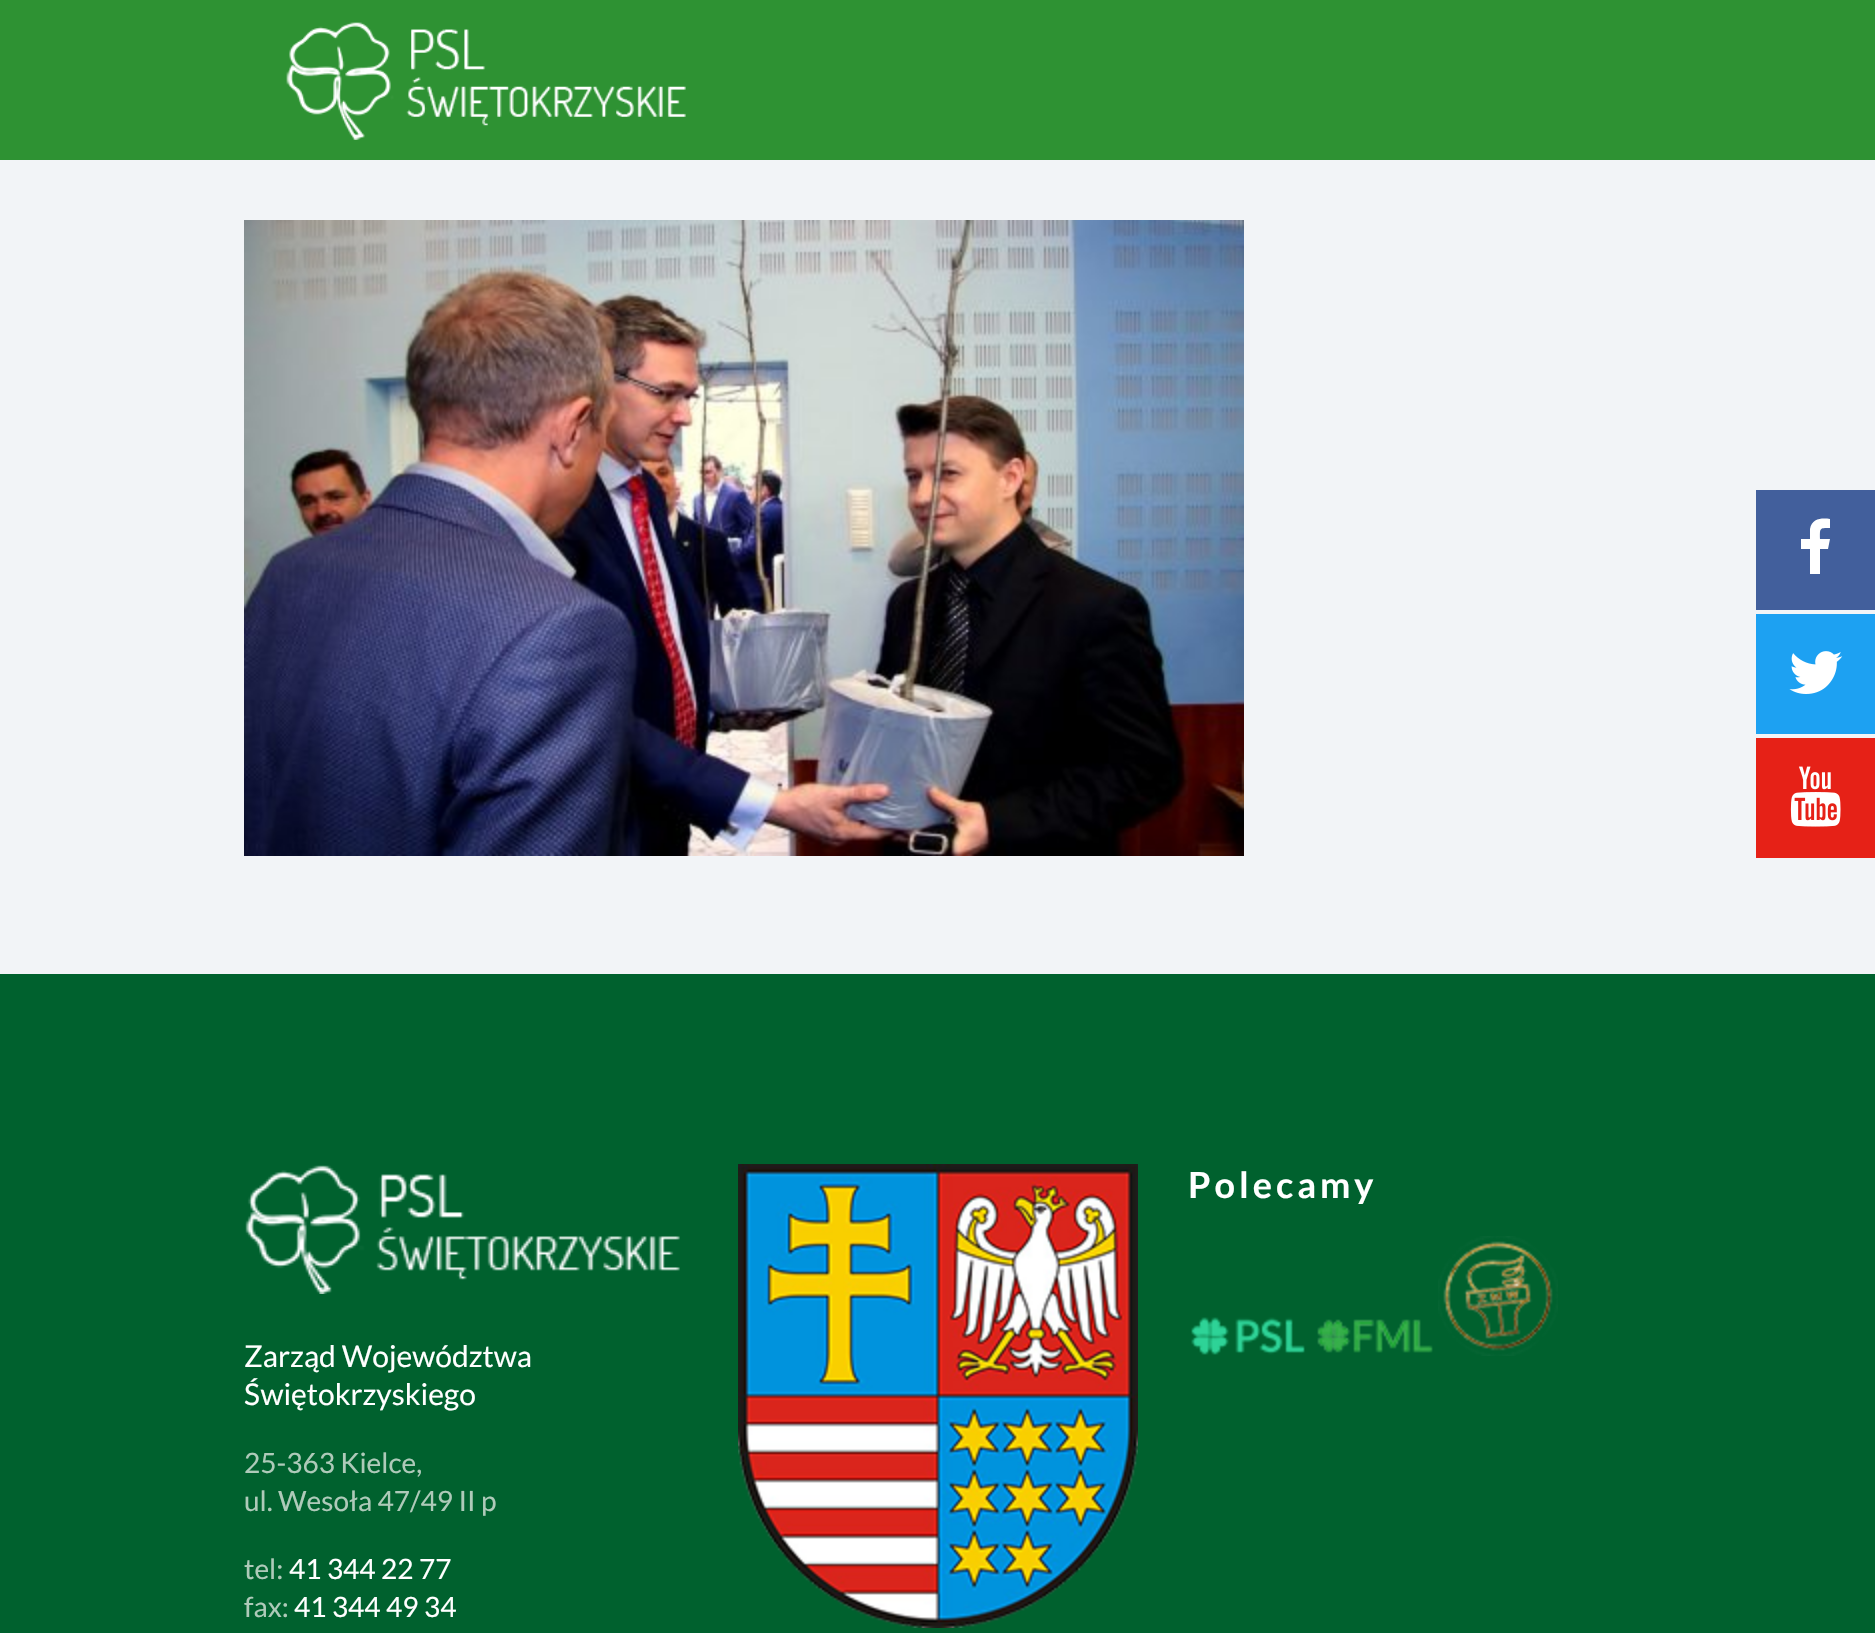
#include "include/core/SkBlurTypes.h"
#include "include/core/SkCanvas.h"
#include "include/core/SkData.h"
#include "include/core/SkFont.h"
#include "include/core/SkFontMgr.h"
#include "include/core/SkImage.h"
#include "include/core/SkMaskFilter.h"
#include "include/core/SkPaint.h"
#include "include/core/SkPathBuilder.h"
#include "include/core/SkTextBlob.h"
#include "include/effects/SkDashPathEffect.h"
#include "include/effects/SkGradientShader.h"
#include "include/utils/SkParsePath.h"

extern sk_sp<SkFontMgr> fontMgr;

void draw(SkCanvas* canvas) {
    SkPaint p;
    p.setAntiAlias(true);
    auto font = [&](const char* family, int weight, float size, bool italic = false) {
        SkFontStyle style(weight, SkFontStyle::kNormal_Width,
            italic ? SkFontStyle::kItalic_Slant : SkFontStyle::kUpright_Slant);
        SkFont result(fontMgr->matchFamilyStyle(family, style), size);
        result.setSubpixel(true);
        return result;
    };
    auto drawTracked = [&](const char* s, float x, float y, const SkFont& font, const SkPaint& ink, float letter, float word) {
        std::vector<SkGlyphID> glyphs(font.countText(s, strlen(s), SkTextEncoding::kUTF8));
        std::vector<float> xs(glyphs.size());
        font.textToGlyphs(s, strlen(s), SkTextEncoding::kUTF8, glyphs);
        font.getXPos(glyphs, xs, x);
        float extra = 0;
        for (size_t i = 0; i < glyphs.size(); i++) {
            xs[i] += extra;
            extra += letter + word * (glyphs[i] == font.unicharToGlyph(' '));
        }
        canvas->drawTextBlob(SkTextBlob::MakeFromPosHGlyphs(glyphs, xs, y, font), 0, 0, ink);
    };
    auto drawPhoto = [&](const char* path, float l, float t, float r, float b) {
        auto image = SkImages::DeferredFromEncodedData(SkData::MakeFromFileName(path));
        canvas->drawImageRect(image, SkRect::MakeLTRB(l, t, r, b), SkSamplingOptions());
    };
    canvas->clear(0xFFF2F4F7);
    p.setColor(0xFF425F9C);
    canvas->drawRect(SkRect::MakeLTRB(1756, 490, 1875, 610), p);
    p.setColor(0xFFFFFFFF);
    canvas->drawPath(SkPathBuilder().moveTo(1830, 519).lineTo(1830, 528).cubicTo(1819, 528, 1820, 528, 1820, 539).lineTo(1830, 539).lineTo(1828, 549).lineTo(1820, 549).lineTo(1820, 574).lineTo(1810, 574).lineTo(1810, 549).lineTo(1801, 549).lineTo(1801, 539).lineTo(1810, 539).lineTo(1810, 529).cubicTo(1812, 518, 1822, 518, 1830, 519).close().detach(), p);
    p.setColor(0xFF1DA1F2);
    canvas->drawRect(SkRect::MakeLTRB(1756, 614, 1875, 734), p);
    drawPhoto("media/1.png", 1789, 651, 1843, 694);
    p.setColor(0xFFE62117);
    canvas->drawRect(SkRect::MakeLTRB(1756, 738, 1875, 858), p);
    drawPhoto("media/2.png", 1790, 766, 1841, 827);
    p.setColor(0xFF2E9233);
    canvas->drawRect(SkRect::MakeLTRB(0, 0, 1875, 160), p);
    drawPhoto("media/3.png", 286, 22, 686, 140);
    drawPhoto("media/4.png", 244, 220, 1244, 856);
    p.setColor(0xFF00612E);
    canvas->drawRect(SkRect::MakeLTRB(0, 974, 1875, 1633), p);
    drawPhoto("media/5.png", 738, 1164, 1138, 1628);
    auto font1 = font("Lato", 700, 36);
    p.setColor(0xFFFFFFFF);
    drawTracked("Polecamy", 1188, 1198, font1, p, 4, 0);
    drawPhoto("media/6.png", 1191, 1317, 1305, 1355);
    drawPhoto("media/7.png", 1317, 1319, 1433, 1353);
    drawPhoto("media/8.png", 1438, 1236, 1558, 1356);
    drawPhoto("media/9.png", 245, 1165, 680, 1294);
    auto font2 = font("Lato", 400, 30);
    canvas->drawString("Zarząd Województwa", 244, 1367, font2, p);
    canvas->drawString("Świętokrzyskiego", 244, 1405, font2, p);
    auto font3 = font("Lato", 400, 28);
    p.setColor(0xFFAECAB9);
    {
        const struct { const char* s; float x, y; } items[] = {
            {"25-363 Kielce,", 244, 1473},
            {"ul. Wesoła 47/49 II p", 244, 1511},
            {"tel:", 244, 1579},
        };
        for (auto [s, x, y] : items) {
            canvas->drawString(s, x, y, font3, p);
        }
    }
    p.setColor(0xFFFFFFFF);
    canvas->drawString("41 344 22 77", 289, 1579, font3, p);
    p.setColor(0xFFAECAB9);
    canvas->drawString("fax:", 244, 1617, font3, p);
    p.setColor(0xFFFFFFFF);
    canvas->drawString("41 344 49 34", 294, 1617, font3, p);
}
